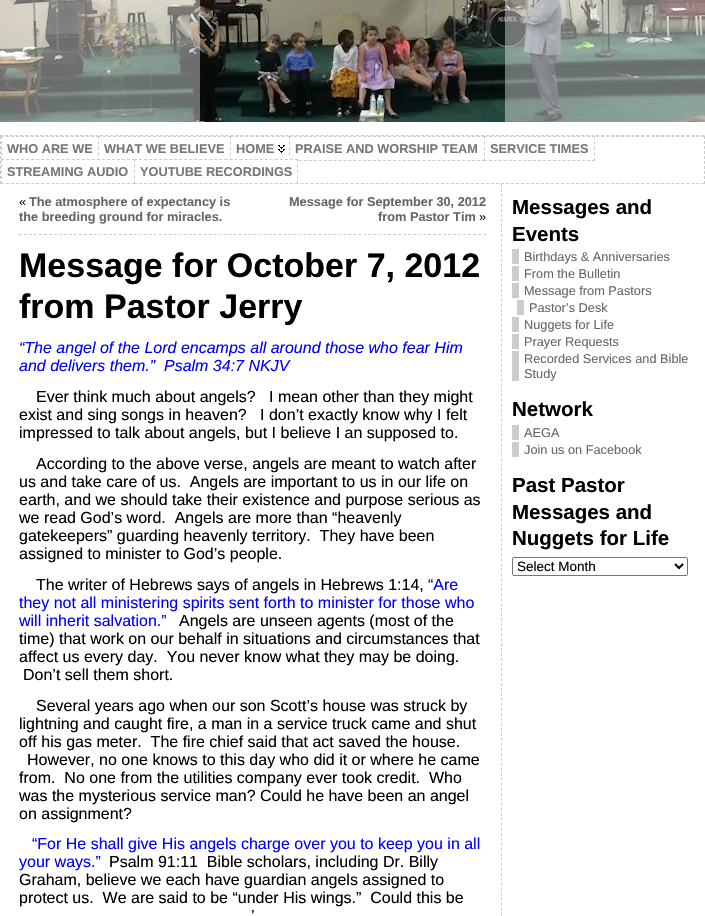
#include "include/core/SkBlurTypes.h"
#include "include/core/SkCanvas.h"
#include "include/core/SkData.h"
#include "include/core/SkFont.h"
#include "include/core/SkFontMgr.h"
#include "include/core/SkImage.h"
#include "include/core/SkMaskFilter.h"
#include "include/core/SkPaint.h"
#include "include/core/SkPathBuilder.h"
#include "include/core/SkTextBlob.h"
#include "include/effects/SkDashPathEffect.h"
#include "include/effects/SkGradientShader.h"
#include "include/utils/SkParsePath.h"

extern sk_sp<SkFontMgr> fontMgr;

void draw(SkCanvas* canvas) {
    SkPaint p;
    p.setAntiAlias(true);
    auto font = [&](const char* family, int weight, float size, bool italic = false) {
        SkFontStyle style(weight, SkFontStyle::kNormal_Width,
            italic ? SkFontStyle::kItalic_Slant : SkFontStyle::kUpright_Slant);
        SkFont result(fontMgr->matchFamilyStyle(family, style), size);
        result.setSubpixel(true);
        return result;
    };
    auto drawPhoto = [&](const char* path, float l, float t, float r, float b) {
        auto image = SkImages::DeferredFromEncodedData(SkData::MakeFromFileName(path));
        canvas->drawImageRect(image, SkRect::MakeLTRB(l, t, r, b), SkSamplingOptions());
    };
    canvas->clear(0xFFFFFFFF);
    drawPhoto("media/1.png", 0, 0, 705, 122);
    p.setColor(0x66FFFFFF);
    canvas->drawRect(SkRect::MakeLTRB(0, 0, 200, 122), p);
    canvas->drawRect(SkRect::MakeLTRB(505, 0, 705, 122), p);
    p.setStyle(SkPaint::kStroke_Style);
    p.setStrokeWidth(1);
    p.setColor(0xFFCCCCCC);
    p.setPathEffect(SkDashPathEffect::Make({{3, 2.01f}}, 0));
    canvas->drawPath(SkPathBuilder().moveTo(0, 135.5f).lineTo(705, 135.5f).detach(), p);
    p.setPathEffect(nullptr);
    p.setPathEffect(SkDashPathEffect::Make({{3, 2.01f}}, 0));
    canvas->drawPath(SkPathBuilder().moveTo(0, 136.5f).lineTo(705, 136.5f).detach(), p);
    p.setPathEffect(nullptr);
    p.setPathEffect(SkDashPathEffect::Make({{3, 2}}, 0));
    canvas->drawPath(SkPathBuilder().moveTo(704.5f, 136).lineTo(704.5f, 184).detach(), p);
    p.setPathEffect(nullptr);
    p.setPathEffect(SkDashPathEffect::Make({{3, 2.01f}}, 0));
    canvas->drawPath(SkPathBuilder().moveTo(0, 183.5f).lineTo(705, 183.5f).detach(), p);
    p.setPathEffect(nullptr);
    p.setPathEffect(SkDashPathEffect::Make({{3, 2}}, 0));
    canvas->drawPath(SkPathBuilder().moveTo(0.5f, 136).lineTo(0.5f, 184).detach(), p);
    p.setPathEffect(nullptr);
    p.setStyle(SkPaint::kFill_Style);
    p.setColor(0xFFFFFFFF);
    canvas->drawRect(SkRect::MakeLTRB(1, 136, 98, 137), p);
    p.setStyle(SkPaint::kStroke_Style);
    p.setColor(0xFFCCCCCC);
    p.setPathEffect(SkDashPathEffect::Make({{3, 2}}, 0));
    canvas->drawPath(SkPathBuilder().moveTo(1, 136.5f).lineTo(99, 136.5f).detach(), p);
    p.setPathEffect(nullptr);
    p.setPathEffect(SkDashPathEffect::Make({{3, 2.5f}}, 0));
    canvas->drawPath(SkPathBuilder().moveTo(1.5f, 136).lineTo(1.5f, 161).detach(), p);
    p.setPathEffect(nullptr);
    auto font1 = font("Liberation Sans", 700, 12.75f);
    p.setStyle(SkPaint::kFill_Style);
    p.setColor(0xFF777777);
    canvas->drawString("WHO ARE WE", 7, 153, font1, p);
    p.setColor(0xFFFFFFFF);
    canvas->drawRect(SkRect::MakeLTRB(98, 136, 229, 137), p);
    p.setStyle(SkPaint::kStroke_Style);
    p.setColor(0xFFCCCCCC);
    p.setPathEffect(SkDashPathEffect::Make({{3, 2}}, 0));
    canvas->drawPath(SkPathBuilder().moveTo(98, 136.5f).lineTo(231, 136.5f).detach(), p);
    p.setPathEffect(nullptr);
    p.setPathEffect(SkDashPathEffect::Make({{3, 2.5f}}, 0));
    canvas->drawPath(SkPathBuilder().moveTo(98.5f, 136).lineTo(98.5f, 161).detach(), p);
    p.setPathEffect(nullptr);
    p.setStyle(SkPaint::kFill_Style);
    p.setColor(0xFF777777);
    canvas->drawString("WHAT WE BELIEVE", 104, 153, font1, p);
    p.setColor(0xFFFFFFFF);
    canvas->drawRect(SkRect::MakeLTRB(230, 136, 289, 137), p);
    drawPhoto("media/2.png", 278, 145, 285, 153);
    p.setStyle(SkPaint::kStroke_Style);
    p.setColor(0xFFCCCCCC);
    p.setPathEffect(SkDashPathEffect::Make({{3, 2.18f}}, 0));
    canvas->drawPath(SkPathBuilder().moveTo(230, 136.5f).lineTo(290, 136.5f).detach(), p);
    p.setPathEffect(nullptr);
    p.setPathEffect(SkDashPathEffect::Make({{3, 2.5f}}, 0));
    canvas->drawPath(SkPathBuilder().moveTo(230.5f, 136).lineTo(230.5f, 161).detach(), p);
    p.setPathEffect(nullptr);
    p.setStyle(SkPaint::kFill_Style);
    p.setColor(0xFF777777);
    canvas->drawString("HOME", 236, 153, font1, p);
    p.setColor(0xFFFFFFFF);
    canvas->drawRect(SkRect::MakeLTRB(289, 136, 484, 137), p);
    p.setStyle(SkPaint::kStroke_Style);
    p.setColor(0xFFCCCCCC);
    p.setPathEffect(SkDashPathEffect::Make({{3, 1.95f}}, 0));
    canvas->drawPath(SkPathBuilder().moveTo(289, 136.5f).lineTo(485, 136.5f).detach(), p);
    p.setPathEffect(nullptr);
    p.setPathEffect(SkDashPathEffect::Make({{3, 1.95f}}, 0));
    canvas->drawPath(SkPathBuilder().moveTo(289, 160.5f).lineTo(485, 160.5f).detach(), p);
    p.setPathEffect(nullptr);
    p.setPathEffect(SkDashPathEffect::Make({{3, 2.5f}}, 0));
    canvas->drawPath(SkPathBuilder().moveTo(289.5f, 136).lineTo(289.5f, 161).detach(), p);
    p.setPathEffect(nullptr);
    p.setStyle(SkPaint::kFill_Style);
    p.setColor(0xFF777777);
    canvas->drawString("PRAISE AND WORSHIP TEAM", 295, 153, font1, p);
    p.setColor(0xFFFFFFFF);
    canvas->drawRect(SkRect::MakeLTRB(484, 136, 595, 161), p);
    p.setStyle(SkPaint::kStroke_Style);
    p.setColor(0xFFCCCCCC);
    p.setPathEffect(SkDashPathEffect::Make({{3, 1.91f}}, 0));
    canvas->drawPath(SkPathBuilder().moveTo(484, 136.5f).lineTo(595, 136.5f).detach(), p);
    p.setPathEffect(nullptr);
    p.setPathEffect(SkDashPathEffect::Make({{3, 2.5f}}, 0));
    canvas->drawPath(SkPathBuilder().moveTo(594.5f, 136).lineTo(594.5f, 161).detach(), p);
    p.setPathEffect(nullptr);
    p.setPathEffect(SkDashPathEffect::Make({{3, 1.91f}}, 0));
    canvas->drawPath(SkPathBuilder().moveTo(484, 160.5f).lineTo(595, 160.5f).detach(), p);
    p.setPathEffect(nullptr);
    p.setPathEffect(SkDashPathEffect::Make({{3, 2.5f}}, 0));
    canvas->drawPath(SkPathBuilder().moveTo(484.5f, 136).lineTo(484.5f, 161).detach(), p);
    p.setPathEffect(nullptr);
    p.setStyle(SkPaint::kFill_Style);
    p.setColor(0xFF777777);
    canvas->drawString("SERVICE TIMES", 490, 153, font1, p);
    p.setColor(0xFFFFFFFF);
    canvas->drawRect(SkRect::MakeLTRB(1, 159, 134, 184), p);
    p.setStyle(SkPaint::kStroke_Style);
    p.setColor(0xFFCCCCCC);
    p.setPathEffect(SkDashPathEffect::Make({{3, 2.04f}}, 0));
    canvas->drawPath(SkPathBuilder().moveTo(1, 159.5f).lineTo(135, 159.5f).detach(), p);
    p.setPathEffect(nullptr);
    p.setPathEffect(SkDashPathEffect::Make({{3, 2.04f}}, 0));
    canvas->drawPath(SkPathBuilder().moveTo(1, 183.5f).lineTo(135, 183.5f).detach(), p);
    p.setPathEffect(nullptr);
    p.setPathEffect(SkDashPathEffect::Make({{3, 2.5f}}, 0));
    canvas->drawPath(SkPathBuilder().moveTo(1.5f, 159).lineTo(1.5f, 184).detach(), p);
    p.setPathEffect(nullptr);
    p.setStyle(SkPaint::kFill_Style);
    p.setColor(0xFF777777);
    canvas->drawString("STREAMING AUDIO", 7, 176, font1, p);
    p.setColor(0xFFFFFFFF);
    canvas->drawRect(SkRect::MakeLTRB(134, 159, 298, 184), p);
    p.setStyle(SkPaint::kStroke_Style);
    p.setColor(0xFFCCCCCC);
    p.setPathEffect(SkDashPathEffect::Make({{3, 2.03f}}, 0));
    canvas->drawPath(SkPathBuilder().moveTo(134, 159.5f).lineTo(298, 159.5f).detach(), p);
    p.setPathEffect(nullptr);
    p.setPathEffect(SkDashPathEffect::Make({{3, 2.5f}}, 0));
    canvas->drawPath(SkPathBuilder().moveTo(297.5f, 159).lineTo(297.5f, 184).detach(), p);
    p.setPathEffect(nullptr);
    p.setPathEffect(SkDashPathEffect::Make({{3, 2.03f}}, 0));
    canvas->drawPath(SkPathBuilder().moveTo(134, 183.5f).lineTo(298, 183.5f).detach(), p);
    p.setPathEffect(nullptr);
    p.setPathEffect(SkDashPathEffect::Make({{3, 2.5f}}, 0));
    canvas->drawPath(SkPathBuilder().moveTo(134.5f, 159).lineTo(134.5f, 184).detach(), p);
    p.setPathEffect(nullptr);
    p.setStyle(SkPaint::kFill_Style);
    p.setColor(0xFF777777);
    canvas->drawString("YOUTUBE RECORDINGS", 140, 176, font1, p);
    p.setStyle(SkPaint::kStroke_Style);
    p.setColor(0xFFCCCCCC);
    p.setPathEffect(SkDashPathEffect::Make({{3, 1.99f}}, 0));
    canvas->drawPath(SkPathBuilder().moveTo(19, 234.5f).lineTo(486, 234.5f).detach(), p);
    p.setPathEffect(nullptr);
    auto font2 = font("Liberation Sans", 400, 12.75f);
    p.setStyle(SkPaint::kFill_Style);
    p.setColor(0xFF000000);
    canvas->drawString("«", 19, 206, font2, p);
    p.setColor(0xFF666666);
    {
        const struct { const char* s; float x, y; } items[] = {
            {"The atmosphere of expectancy is", 29, 206},
            {"the breeding ground for miracles.", 19, 221},
            {"Message for September 30, 2012", 289, 206},
            {"from Pastor Tim", 378, 221},
        };
        for (auto [s, x, y] : items) {
            canvas->drawString(s, x, y, font1, p);
        }
    }
    p.setColor(0xFF000000);
    canvas->drawString("»", 479, 221, font2, p);
    auto font3 = font("Liberation Sans", 700, 34);
    canvas->drawString("Message for October 7, 2012", 19, 277, font3, p);
    canvas->drawString("from Pastor Jerry", 19, 318, font3, p);
    auto font4 = font("Liberation Sans", 400, 16, true);
    p.setColor(0xFF0000FF);
    canvas->drawString("“The angel of the Lord encamps all around those who fear Him", 19, 353, font4, p);
    canvas->drawString("and delivers them.”  Psalm 34:7 NKJV", 19, 371, font4, p);
    auto font5 = font("Liberation Sans", 400, 16);
    p.setColor(0xFF000000);
    {
        const struct { const char* s; float x, y; } items[] = {
            {"Ever think much about angels?   I mean other than they might", 36, 402},
            {"exist and sing songs in heaven?   I don’t exactly know why I felt", 19, 420},
            {"impressed to talk about angels, but I believe I an supposed to.", 19, 438},
            {"According to the above verse, angels are meant to watch after", 36, 469},
            {"us and take care of us.  Angels are important to us in our life on", 19, 487},
            {"earth, and we should take their existence and purpose serious as", 19, 505},
            {"we read God’s word.  Angels are more than “heavenly", 19, 523},
            {"gatekeepers” guarding heavenly territory.  They have been", 19, 541},
            {"assigned to minister to God’s people.", 19, 559},
            {"The writer of Hebrews says of angels in Hebrews 1:14,", 36, 590},
        };
        for (auto [s, x, y] : items) {
            canvas->drawString(s, x, y, font5, p);
        }
    }
    p.setColor(0xFF0000FF);
    {
        const struct { const char* s; float x, y; } items[] = {
            {"“Are", 428, 590},
            {"they not all ministering spirits sent forth to minister for those who", 19, 608},
            {"will inherit salvation.”", 19, 626},
        };
        for (auto [s, x, y] : items) {
            canvas->drawString(s, x, y, font5, p);
        }
    }
    p.setColor(0xFF000000);
    {
        const struct { const char* s; float x, y; } items[] = {
            {"Angels are unseen agents (most of the", 179, 626},
            {"time) that work on our behalf in situations and circumstances that", 19, 644},
            {"affect us every day.  You never know what they may be doing.", 19, 662},
            {"Don’t sell them short.", 23, 680},
            {"Several years ago when our son Scott’s house was struck by", 36, 711},
            {"lightning and caught fire, a man in a service truck came and shut", 19, 729},
            {"off his gas meter.  The fire chief said that act saved the house.", 19, 747},
            {"However, no one knows to this day who did it or where he came", 27, 765},
            {"from.  No one from the utilities company ever took credit.  Who", 19, 783},
            {"was the mysterious service man? Could he have been an angel", 19, 801},
            {"on assignment?", 19, 819},
        };
        for (auto [s, x, y] : items) {
            canvas->drawString(s, x, y, font5, p);
        }
    }
    p.setColor(0xFF0000FF);
    canvas->drawString("“For He shall give His angels charge over you to keep you in all", 32, 849, font5, p);
    canvas->drawString("your ways.”", 19, 867, font5, p);
    p.setColor(0xFF000000);
    {
        const struct { const char* s; float x, y; } items[] = {
            {"Psalm 91:11  Bible scholars, including Dr. Billy", 109, 867},
            {"Graham, believe we each have guardian angels assigned to", 19, 885},
            {"protect us.  We are said to be “under His wings.”  Could this be", 19, 903},
            {"’", 251, 921},
        };
        for (auto [s, x, y] : items) {
            canvas->drawString(s, x, y, font5, p);
        }
    }
    p.setStyle(SkPaint::kStroke_Style);
    p.setColor(0xFFCCCCCC);
    p.setPathEffect(SkDashPathEffect::Make({{3, 1.99f}}, 0));
    canvas->drawPath(SkPathBuilder().moveTo(501.5f, 184).lineTo(501.5f, 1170).detach(), p);
    p.setPathEffect(nullptr);
    auto font6 = font("Liberation Sans", 700, 20.5f);
    p.setStyle(SkPaint::kFill_Style);
    p.setColor(0xFF000000);
    canvas->drawString("Messages and", 512, 214, font6, p);
    canvas->drawString("Events", 512, 241, font6, p);
    p.setColor(0xFFCCCCCC);
    canvas->drawRect(SkRect::MakeLTRB(512, 249, 519, 264), p);
    p.setColor(0xFF666666);
    canvas->drawString("Birthdays & Anniversaries", 524, 261, font2, p);
    p.setColor(0xFFCCCCCC);
    canvas->drawRect(SkRect::MakeLTRB(512, 266, 519, 281), p);
    p.setColor(0xFF666666);
    canvas->drawString("From the Bulletin", 524, 278, font2, p);
    p.setColor(0xFFCCCCCC);
    canvas->drawRect(SkRect::MakeLTRB(512, 283, 519, 298), p);
    p.setColor(0xFF666666);
    canvas->drawString("Message from Pastors", 524, 295, font2, p);
    p.setColor(0xFFCCCCCC);
    canvas->drawRect(SkRect::MakeLTRB(517, 300, 524, 315), p);
    p.setColor(0xFF666666);
    canvas->drawString("Pastor’s Desk", 529, 312, font2, p);
    p.setColor(0xFFCCCCCC);
    canvas->drawRect(SkRect::MakeLTRB(512, 317, 519, 332), p);
    p.setColor(0xFF666666);
    canvas->drawString("Nuggets for Life", 524, 329, font2, p);
    p.setColor(0xFFCCCCCC);
    canvas->drawRect(SkRect::MakeLTRB(512, 334, 519, 349), p);
    p.setColor(0xFF666666);
    canvas->drawString("Prayer Requests", 524, 346, font2, p);
    p.setColor(0xFFCCCCCC);
    canvas->drawRect(SkRect::MakeLTRB(512, 351, 519, 381), p);
    p.setColor(0xFF666666);
    canvas->drawString("Recorded Services and Bible", 524, 363, font2, p);
    canvas->drawString("Study", 524, 378, font2, p);
    p.setColor(0xFF000000);
    canvas->drawString("Network", 512, 416, font6, p);
    p.setColor(0xFFCCCCCC);
    canvas->drawRect(SkRect::MakeLTRB(512, 425, 519, 440), p);
    p.setColor(0xFF666666);
    canvas->drawString("AEGA", 524, 437, font2, p);
    p.setColor(0xFFCCCCCC);
    canvas->drawRect(SkRect::MakeLTRB(512, 442, 519, 457), p);
    p.setColor(0xFF666666);
    canvas->drawString("Join us on Facebook", 524, 454, font2, p);
    p.setColor(0xFF000000);
    {
        const struct { const char* s; float x, y; } items[] = {
            {"Past Pastor", 512, 492},
            {"Messages and", 512, 519},
            {"Nuggets for Life", 512, 545},
        };
        for (auto [s, x, y] : items) {
            canvas->drawString(s, x, y, font6, p);
        }
    }
    p.setStyle(SkPaint::kStroke_Style);
    p.setColor(0xFF767676);
    canvas->drawRoundRect(SkRect::MakeLTRB(512.5f, 557.5f, 687.5f, 575.5f), 1.5f, 1.5f, p);
    p.setStrokeWidth(2);
    p.setColor(0xFF000000);
    canvas->drawPath(SkPathBuilder().moveTo(675, 564).lineTo(679, 568).lineTo(683, 564).detach(), p);
    auto font7 = font("Liberation Sans", 400, 13.5f);
    p.setStyle(SkPaint::kFill_Style);
    canvas->drawString("Select Month", 517, 571, font7, p);
}
